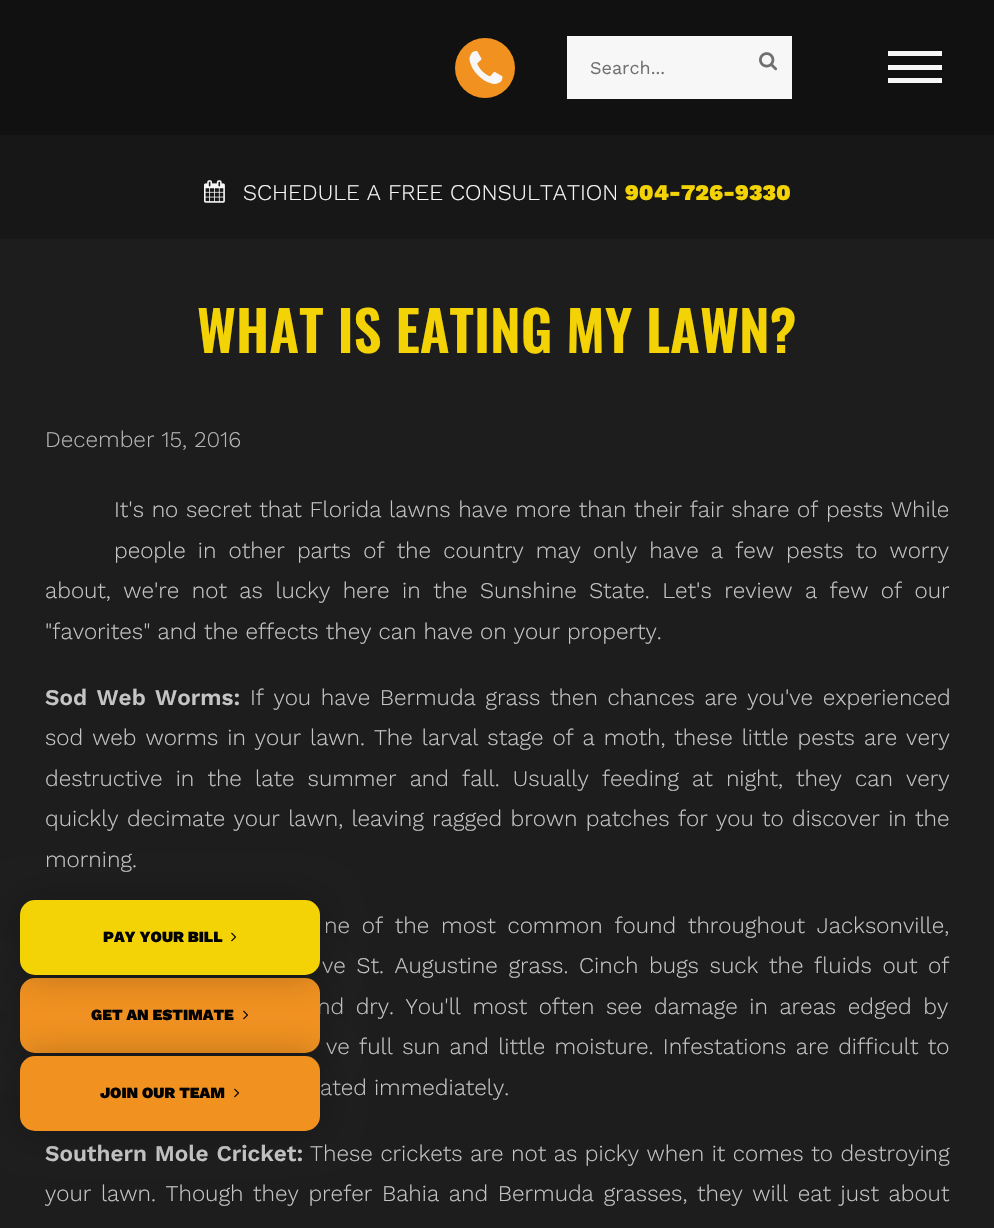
#include "include/core/SkBlurTypes.h"
#include "include/core/SkCanvas.h"
#include "include/core/SkData.h"
#include "include/core/SkFont.h"
#include "include/core/SkFontMgr.h"
#include "include/core/SkImage.h"
#include "include/core/SkMaskFilter.h"
#include "include/core/SkPaint.h"
#include "include/core/SkPathBuilder.h"
#include "include/core/SkTextBlob.h"
#include "include/effects/SkDashPathEffect.h"
#include "include/effects/SkGradientShader.h"
#include "include/utils/SkParsePath.h"

extern sk_sp<SkFontMgr> fontMgr;

void draw(SkCanvas* canvas) {
    SkPaint p;
    p.setAntiAlias(true);
    auto font = [&](const char* family, int weight, float size, bool italic = false) {
        SkFontStyle style(weight, SkFontStyle::kNormal_Width,
            italic ? SkFontStyle::kItalic_Slant : SkFontStyle::kUpright_Slant);
        SkFont result(fontMgr->matchFamilyStyle(family, style), size);
        result.setSubpixel(true);
        return result;
    };
    auto drawTracked = [&](const char* s, float x, float y, const SkFont& font, const SkPaint& ink, float letter, float word) {
        std::vector<SkGlyphID> glyphs(font.countText(s, strlen(s), SkTextEncoding::kUTF8));
        std::vector<float> xs(glyphs.size());
        font.textToGlyphs(s, strlen(s), SkTextEncoding::kUTF8, glyphs);
        font.getXPos(glyphs, xs, x);
        float extra = 0;
        for (size_t i = 0; i < glyphs.size(); i++) {
            xs[i] += extra;
            extra += letter + word * (glyphs[i] == font.unicharToGlyph(' '));
        }
        canvas->drawTextBlob(SkTextBlob::MakeFromPosHGlyphs(glyphs, xs, y, font), 0, 0, ink);
    };
    auto drawPhoto = [&](const char* path, float l, float t, float r, float b) {
        auto image = SkImages::DeferredFromEncodedData(SkData::MakeFromFileName(path));
        canvas->drawImageRect(image, SkRect::MakeLTRB(l, t, r, b), SkSamplingOptions());
    };
    canvas->clear(0xFF171717);
    p.setColor(0xFF111111);
    canvas->drawRect(SkRect::MakeLTRB(0, 0, 994, 135), p);
    p.setColor(0xFFF09120);
    canvas->drawCircle(485, 68, 30, p);
    drawPhoto("media/1.png", 469, 51, 503, 84);
    p.setColor(0xFFF7F7F7);
    canvas->drawRect(SkRect::MakeLTRB(567, 36, 792, 99), p);
    auto font1 = font("Work Sans", 400, 18);
    p.setColor(0xFF727272);
    canvas->drawString("Search...", 590, 74, font1, p);
    drawPhoto("media/2.png", 759, 52, 778, 71);
    {
        const struct { float l, t, r, b; SkColor color; } items[] = {
            {888, 51, 942, 56, 0xFFF7F7F7},
            {888, 65, 942, 70, 0xFFF7F7F7},
            {888, 78, 942, 83, 0xFFF7F7F7},
        };
        for (auto [l, t, r, b, color] : items) {
            p.setColor(color);
            canvas->drawRect(SkRect::MakeLTRB(l, t, r, b), p);
        }
    }
    drawPhoto("media/3.png", 204, 180, 225, 203);
    auto font2 = font("Work Sans", 300, 22.5f);
    canvas->drawString("SCHEDULE A FREE CONSULTATION", 243, 200, font2, p);
    auto font3 = font("Work Sans", 900, 22.5f);
    p.setColor(0xFFF3D305);
    canvas->drawString("904-726-9330", 625, 200, font3, p);
    p.setColor(0xFF1D1D1D);
    canvas->drawRect(SkRect::MakeLTRB(0, 239, 994, 1228), p);
    auto font4 = font("Oswald", 600, 55.5f);
    p.setColor(0xFFF3D305);
    canvas->drawString("WHAT IS EATING MY LAWN?", 197, 353, font4, p);
    p.setColor(0xFFB6B6B6);
    canvas->drawString("December 15, 2016", 45, 447, font2, p);
    p.setColor(0xFFC5C5C5);
    drawTracked("It's no secret that Florida lawns have more than their fair share of pests While", 114, 517, font2, p, 0, 0.6f);
    drawTracked("people in other parts of the country may only have a few pests to worry", 114, 558, font2, p, 0, 5.1f);
    drawTracked("about, we're not as lucky here in the Sunshine State. Let's review a few of our", 45, 598, font2, p, 0, 5.4f);
    canvas->drawString("\"favorites\" and the effects they can have on your property.", 45, 639, font2, p);
    auto font5 = font("Work Sans", 600, 22.5f);
    drawTracked("Sod Web Worms:", 45, 705, font5, p, 0, 2.5f);
    drawTracked("If you have Bermuda grass then chances are you've experienced", 250, 705, font2, p, 0, 2.5f);
    drawTracked("sod web worms in your lawn. The larval stage of a moth, these little pests are very", 45, 745, font2, p, 0, 1.9f);
    drawTracked("destructive in the late summer and fall. Usually feeding at night, they can very", 45, 786, font2, p, 0, 6.1f);
    drawTracked("quickly decimate your lawn, leaving ragged brown patches for you to discover in the", 45, 826, font2, p, 0, 1.25f);
    canvas->drawString("morning.", 45, 867, font2, p);
    drawTracked("ne of the most common found throughout Jacksonville,", 324, 933, font2, p, 0, 4.75f);
    drawTracked("ve St. Augustine grass. Cinch bugs suck the fluids out of", 322, 973, font2, p, 0, 3.6f);
    drawTracked("nd dry. You'll most often see damage in areas edged by", 317, 1014, font2, p, 0, 4.5f);
    drawTracked("ve full sun and little moisture. Infestations are difficult to", 326, 1054, font2, p, 0, 2.25f);
    canvas->drawString("ated immediately.", 320, 1095, font2, p);
    drawTracked("Southern Mole Cricket:", 45, 1161, font5, p, 0, 1);
    drawTracked("These crickets are not as picky when it comes to destroying", 310, 1161, font2, p, 0, 0.5f);
    drawTracked("your lawn. Though they prefer Bahia and Bermuda grasses, they will eat just about", 45, 1201, font2, p, 0, 2.6f);
    p.setColor(0x40020202);
    p.setMaskFilter(SkMaskFilter::MakeBlur(kNormal_SkBlurStyle, 19.5f));
    canvas->drawRoundRect(SkRect::MakeLTRB(20, 978, 320, 1053), 15, 15, p);
    p.setMaskFilter(nullptr);
    p.setColor(0xFFF09120);
    canvas->drawRoundRect(SkRect::MakeLTRB(20, 978, 320, 1053), 15, 15, p);
    drawPhoto("media/5.png", 243, 1010, 249, 1020);
    p.setColor(0x40020202);
    p.setMaskFilter(SkMaskFilter::MakeBlur(kNormal_SkBlurStyle, 19.5f));
    canvas->drawRoundRect(SkRect::MakeLTRB(20, 900, 320, 975), 15, 15, p);
    p.setMaskFilter(nullptr);
    p.setColor(0xFFF3D305);
    canvas->drawRoundRect(SkRect::MakeLTRB(20, 900, 320, 975), 15, 15, p);
    auto font6 = font("Work Sans", 900, 15.5f);
    p.setColor(0xFF020202);
    canvas->drawString("PAY YOUR BILL", 103, 942, font6, p);
    drawPhoto("media/4.png", 231, 932, 237, 942);
    canvas->drawString("GET AN ESTIMATE", 91, 1020, font6, p);
    p.setColor(0x40020202);
    p.setMaskFilter(SkMaskFilter::MakeBlur(kNormal_SkBlurStyle, 19.5f));
    canvas->drawRoundRect(SkRect::MakeLTRB(20, 1056, 320, 1131), 15, 15, p);
    p.setMaskFilter(nullptr);
    p.setColor(0xFFF09120);
    canvas->drawRoundRect(SkRect::MakeLTRB(20, 1056, 320, 1131), 15, 15, p);
    p.setColor(0xFF020202);
    canvas->drawString("JOIN OUR TEAM", 100, 1098, font6, p);
    drawPhoto("media/5.png", 234, 1088, 240, 1098);
}
